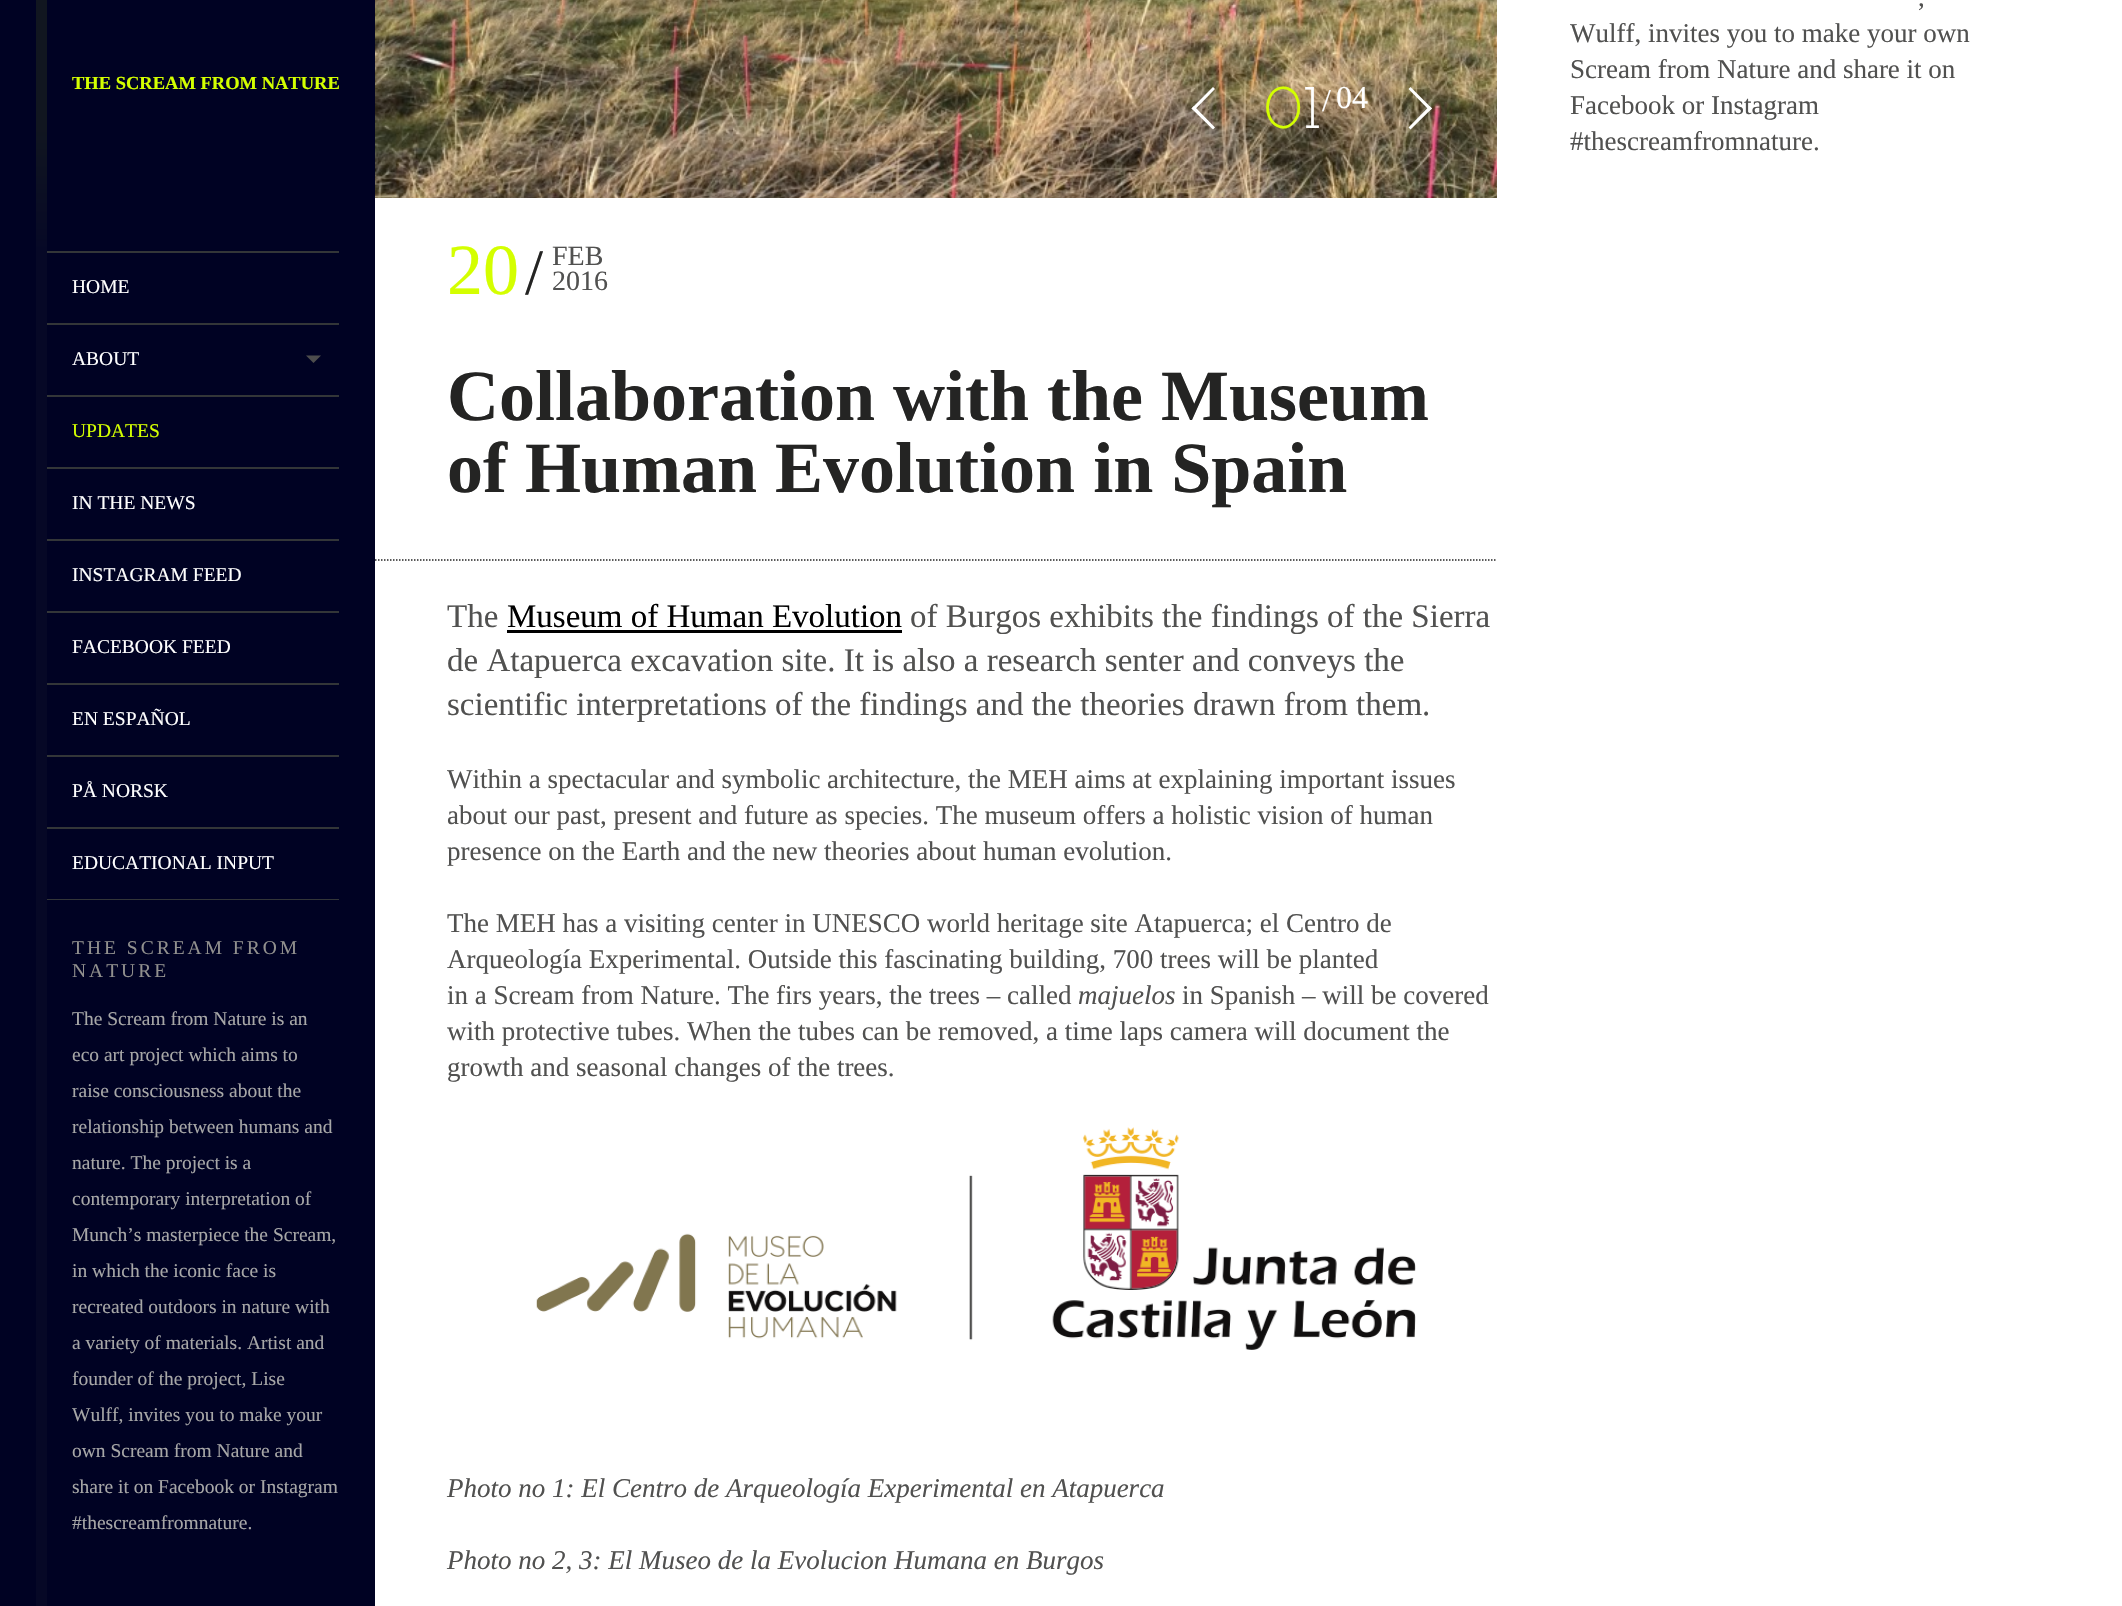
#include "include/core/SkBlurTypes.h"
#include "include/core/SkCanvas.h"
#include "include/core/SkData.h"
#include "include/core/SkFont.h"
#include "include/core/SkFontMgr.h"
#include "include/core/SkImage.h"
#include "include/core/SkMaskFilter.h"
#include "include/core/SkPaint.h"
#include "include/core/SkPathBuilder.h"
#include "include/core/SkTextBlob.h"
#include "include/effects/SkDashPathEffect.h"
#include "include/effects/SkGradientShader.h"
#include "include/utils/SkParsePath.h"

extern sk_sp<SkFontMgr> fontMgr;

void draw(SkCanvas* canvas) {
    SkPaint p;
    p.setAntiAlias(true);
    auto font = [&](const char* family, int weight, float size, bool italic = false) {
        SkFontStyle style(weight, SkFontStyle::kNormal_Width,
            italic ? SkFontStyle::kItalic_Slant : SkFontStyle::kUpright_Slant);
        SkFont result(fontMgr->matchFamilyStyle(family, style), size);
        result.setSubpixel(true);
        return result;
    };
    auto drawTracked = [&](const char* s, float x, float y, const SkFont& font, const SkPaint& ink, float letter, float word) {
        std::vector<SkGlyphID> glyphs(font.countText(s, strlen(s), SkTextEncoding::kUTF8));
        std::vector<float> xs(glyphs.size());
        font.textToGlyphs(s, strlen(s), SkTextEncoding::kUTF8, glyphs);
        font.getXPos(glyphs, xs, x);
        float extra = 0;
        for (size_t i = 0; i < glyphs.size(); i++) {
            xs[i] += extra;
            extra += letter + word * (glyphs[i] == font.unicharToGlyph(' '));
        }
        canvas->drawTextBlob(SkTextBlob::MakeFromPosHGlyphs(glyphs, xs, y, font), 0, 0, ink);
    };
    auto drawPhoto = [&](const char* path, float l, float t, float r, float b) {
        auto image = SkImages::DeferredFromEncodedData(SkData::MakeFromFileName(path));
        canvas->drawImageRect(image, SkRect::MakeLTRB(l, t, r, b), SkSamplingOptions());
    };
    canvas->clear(0xFFFFFFFF);
    p.setStyle(SkPaint::kStroke_Style);
    p.setStrokeWidth(1.5f);
    p.setColor(0xFF242423);
    p.setPathEffect(SkDashPathEffect::Make({{1.5f, 1.5f}}, 0));
    canvas->drawPath(SkPathBuilder().moveTo(87, 560).lineTo(1497, 560).detach(), p);
    p.setPathEffect(nullptr);
    p.setStyle(SkPaint::kFill_Style);
    p.setColor(0xFF000223);
    canvas->drawRect(SkRect::MakeLTRB(0, 0, 375, 1606), p);
    p.setColor(0xFF060826);
    canvas->drawRect(SkRect::MakeLTRB(36, 252, 47, 1606), p);
    {
        const SkColor colors[] = {0xFF111620, 0xFF060826};
        const float stops[] = {0.5f, 1};
        const SkPoint ends[] = {{37, 0}, {37, 252}};
        p.setShader(SkGradientShader::MakeLinear(ends, colors, stops, 2, SkTileMode::kClamp));
        p.setAlpha(255);
    }
    canvas->drawRect(SkRect::MakeLTRB(36, 0, 47, 252), p);
    canvas->save();
    canvas->clipRect(SkRect::MakeLTRB(72, 0, 339, 252));
    auto font1 = font("Liberation Serif", 700, 18.5f);
    p.setShader(nullptr);
    p.setColor(0xFFD4FF00);
    canvas->drawString("THE SCREAM FROM NATURE", 72, 89, font1, p);
    canvas->restore();
    p.setColor(0xFF333638);
    canvas->drawRect(SkRect::MakeLTRB(47, 251, 339, 253), p);
    canvas->drawRect(SkRect::MakeLTRB(47, 323, 339, 325), p);
    auto font2 = font("Liberation Serif", 400, 19.5f);
    p.setColor(0xFFFFFFFF);
    canvas->drawString("HOME", 72, 293, font2, p);
    p.setColor(0xFF333638);
    canvas->drawRect(SkRect::MakeLTRB(47, 395, 339, 397), p);
    p.setColor(0xFFFFFFFF);
    canvas->drawString("ABOUT", 72, 365, font2, p);
    p.setColor(0xFF4D4D4D);
    canvas->drawPath(SkPathBuilder().moveTo(306, 355.5f).lineTo(321, 355.5f).lineTo(313.5f, 363).close().detach(), p);
    p.setColor(0xFF333638);
    canvas->drawRect(SkRect::MakeLTRB(47, 467, 339, 469), p);
    p.setColor(0xFFD4FF00);
    canvas->drawString("UPDATES", 72, 437, font2, p);
    p.setColor(0xFF333638);
    canvas->drawRect(SkRect::MakeLTRB(47, 539, 339, 541), p);
    p.setColor(0xFFFFFFFF);
    canvas->drawString("IN THE NEWS", 72, 509, font2, p);
    p.setColor(0xFF333638);
    canvas->drawRect(SkRect::MakeLTRB(47, 611, 339, 613), p);
    p.setColor(0xFFFFFFFF);
    canvas->drawString("INSTAGRAM FEED", 72, 581, font2, p);
    p.setColor(0xFF333638);
    canvas->drawRect(SkRect::MakeLTRB(47, 683, 339, 685), p);
    p.setColor(0xFFFFFFFF);
    canvas->drawString("FACEBOOK FEED", 72, 653, font2, p);
    p.setColor(0xFF333638);
    canvas->drawRect(SkRect::MakeLTRB(47, 755, 339, 757), p);
    p.setColor(0xFFFFFFFF);
    canvas->drawString("EN ESPAÑOL", 72, 725, font2, p);
    p.setColor(0xFF333638);
    canvas->drawRect(SkRect::MakeLTRB(47, 827, 339, 829), p);
    p.setColor(0xFFFFFFFF);
    canvas->drawString("PÅ NORSK", 72, 797, font2, p);
    p.setColor(0xFF333638);
    canvas->drawRect(SkRect::MakeLTRB(47, 899, 339, 900), p);
    p.setColor(0xFFFFFFFF);
    canvas->drawString("EDUCATIONAL INPUT", 72, 869, font2, p);
    p.setColor(0xFF91908E);
    drawTracked("THE SCREAM FROM", 72, 954, font2, p, 3, 0);
    drawTracked("NATURE", 72, 977, font2, p, 3, 0);
    p.setColor(0xFFA7A7A7);
    {
        const struct { const char* s; float x, y; } items[] = {
            {"The Scream from Nature is an", 72, 1025},
            {"eco art project which aims to", 72, 1061},
            {"raise consciousness about the", 72, 1097},
            {"relationship between humans and", 72, 1133},
            {"nature. The project is a", 72, 1169},
            {"contemporary interpretation of", 72, 1205},
            {"Munch’s masterpiece the Scream,", 72, 1241},
            {"in which the iconic face is", 72, 1277},
            {"recreated outdoors in nature with", 72, 1313},
            {"a variety of materials. Artist and", 72, 1349},
            {"founder of the project, Lise", 72, 1385},
            {"Wulff, invites you to make your", 72, 1421},
            {"own Scream from Nature and", 72, 1457},
            {"share it on Facebook or Instagram", 72, 1493},
            {"#thescreamfromnature.", 72, 1529},
        };
        for (auto [s, x, y] : items) {
            canvas->drawString(s, x, y, font2, p);
        }
    }
    drawPhoto("media/1.png", 375, 0, 1497, 198);
    p.setColor(0xFFFFFFFF);
    canvas->drawPath(SkPathBuilder().moveTo(1194, 106).lineTo(1215, 127.5f).lineTo(1213, 129.5f).lineTo(1191.5f, 108.5f).close().detach(), p);
    canvas->drawPath(SkPathBuilder().moveTo(1213, 87).lineTo(1215, 89).lineTo(1194, 110.5f).lineTo(1191.5f, 108.5f).close().detach(), p);
    auto font3 = font("Josefin Slab", 400, 63);
    p.setColor(0xFFD4FF00);
    canvas->drawString("0", 1264, 128, font3, p);
    p.setColor(0xFFFFFFFF);
    canvas->drawString("1", 1303, 128, font3, p);
    auto font4 = font("Liberation Serif", 400, 32);
    canvas->drawString("/", 1322, 111, font4, p);
    canvas->drawString("04", 1336, 108, font4, p);
    canvas->drawPath(SkPathBuilder().moveTo(1408.5f, 89).lineTo(1410.5f, 87).lineTo(1432, 108.5f).lineTo(1429.5f, 110.5f).close().detach(), p);
    canvas->drawPath(SkPathBuilder().moveTo(1408.5f, 127.5f).lineTo(1429.5f, 106).lineTo(1432, 108.5f).lineTo(1410.5f, 129.5f).close().detach(), p);
    auto font5 = font("Liberation Serif", 400, 72);
    p.setColor(0xFFD4FF00);
    canvas->drawString("20", 447, 294, font5, p);
    auto font6 = font("Liberation Serif", 400, 65);
    p.setColor(0xFF242423);
    canvas->drawString("/", 525, 294, font6, p);
    auto font7 = font("Liberation Serif", 400, 28);
    p.setColor(0xFF515150);
    canvas->drawString("FEB", 552, 265, font7, p);
    canvas->drawString("2016", 552, 290, font7, p);
    auto font8 = font("Liberation Serif", 700, 72);
    p.setColor(0xFF242423);
    canvas->drawString("Collaboration with the Museum", 447, 420, font8, p);
    canvas->drawString("of Human Evolution in Spain", 447, 492, font8, p);
    auto font9 = font("Liberation Serif", 400, 33);
    p.setColor(0xFF515150);
    canvas->drawString("The", 447, 627, font9, p);
    p.setColor(0xFF000000);
    canvas->drawString("Museum of Human Evolution", 507, 627, font9, p);
    canvas->drawRect(SkRect::MakeLTRB(507, 630, 902, 633), p);
    p.setColor(0xFF515150);
    {
        const struct { const char* s; float x, y; } items[] = {
            {"of Burgos exhibits the findings of the Sierra", 910, 627},
            {"de Atapuerca excavation site. It is also a research senter and conveys the", 447, 671},
            {"scientific interpretations of the findings and the theories drawn from them.", 447, 715},
        };
        for (auto [s, x, y] : items) {
            canvas->drawString(s, x, y, font9, p);
        }
    }
    auto font10 = font("Liberation Serif", 400, 27);
    {
        const struct { const char* s; float x, y; } items[] = {
            {"Within a spectacular and symbolic architecture, the MEH aims at explaining important issues", 447, 788},
            {"about our past, present and future as species. The museum offers a holistic vision of human", 447, 824},
            {"presence on the Earth and the new theories about human evolution.", 447, 860},
            {"The MEH has a visiting center in UNESCO world heritage site Atapuerca; el Centro de", 447, 932},
            {"Arqueología Experimental. Outside this fascinating building, 700 trees will be planted", 447, 968},
            {"in a Scream from Nature. The firs years, the trees – called", 447, 1004},
        };
        for (auto [s, x, y] : items) {
            canvas->drawString(s, x, y, font10, p);
        }
    }
    auto font11 = font("Liberation Serif", 400, 27, true);
    canvas->drawString("majuelos", 1078, 1004, font11, p);
    {
        const struct { const char* s; float x, y; } items[] = {
            {"in Spanish – will be covered", 1182, 1004},
            {"with protective tubes. When the tubes can be removed, a time laps camera will document the", 447, 1040},
            {"growth and seasonal changes of the trees.", 447, 1076},
        };
        for (auto [s, x, y] : items) {
            canvas->drawString(s, x, y, font10, p);
        }
    }
    drawPhoto("media/2.png", 536, 1127, 1416, 1350);
    canvas->drawString("Photo no 1: El Centro de Arqueología Experimental en Atapuerca", 447, 1497, font11, p);
    canvas->drawString("Photo no 2, 3: El Museo de la Evolucion Humana en Burgos", 447, 1569, font11, p);
    {
        const struct { const char* s; float x, y; } items[] = {
            {",", 1918, 6},
            {"Wulff, invites you to make your own", 1570, 42},
            {"Scream from Nature and share it on", 1570, 78},
            {"Facebook or Instagram", 1570, 114},
            {"#thescreamfromnature.", 1570, 150},
        };
        for (auto [s, x, y] : items) {
            canvas->drawString(s, x, y, font10, p);
        }
    }
}
